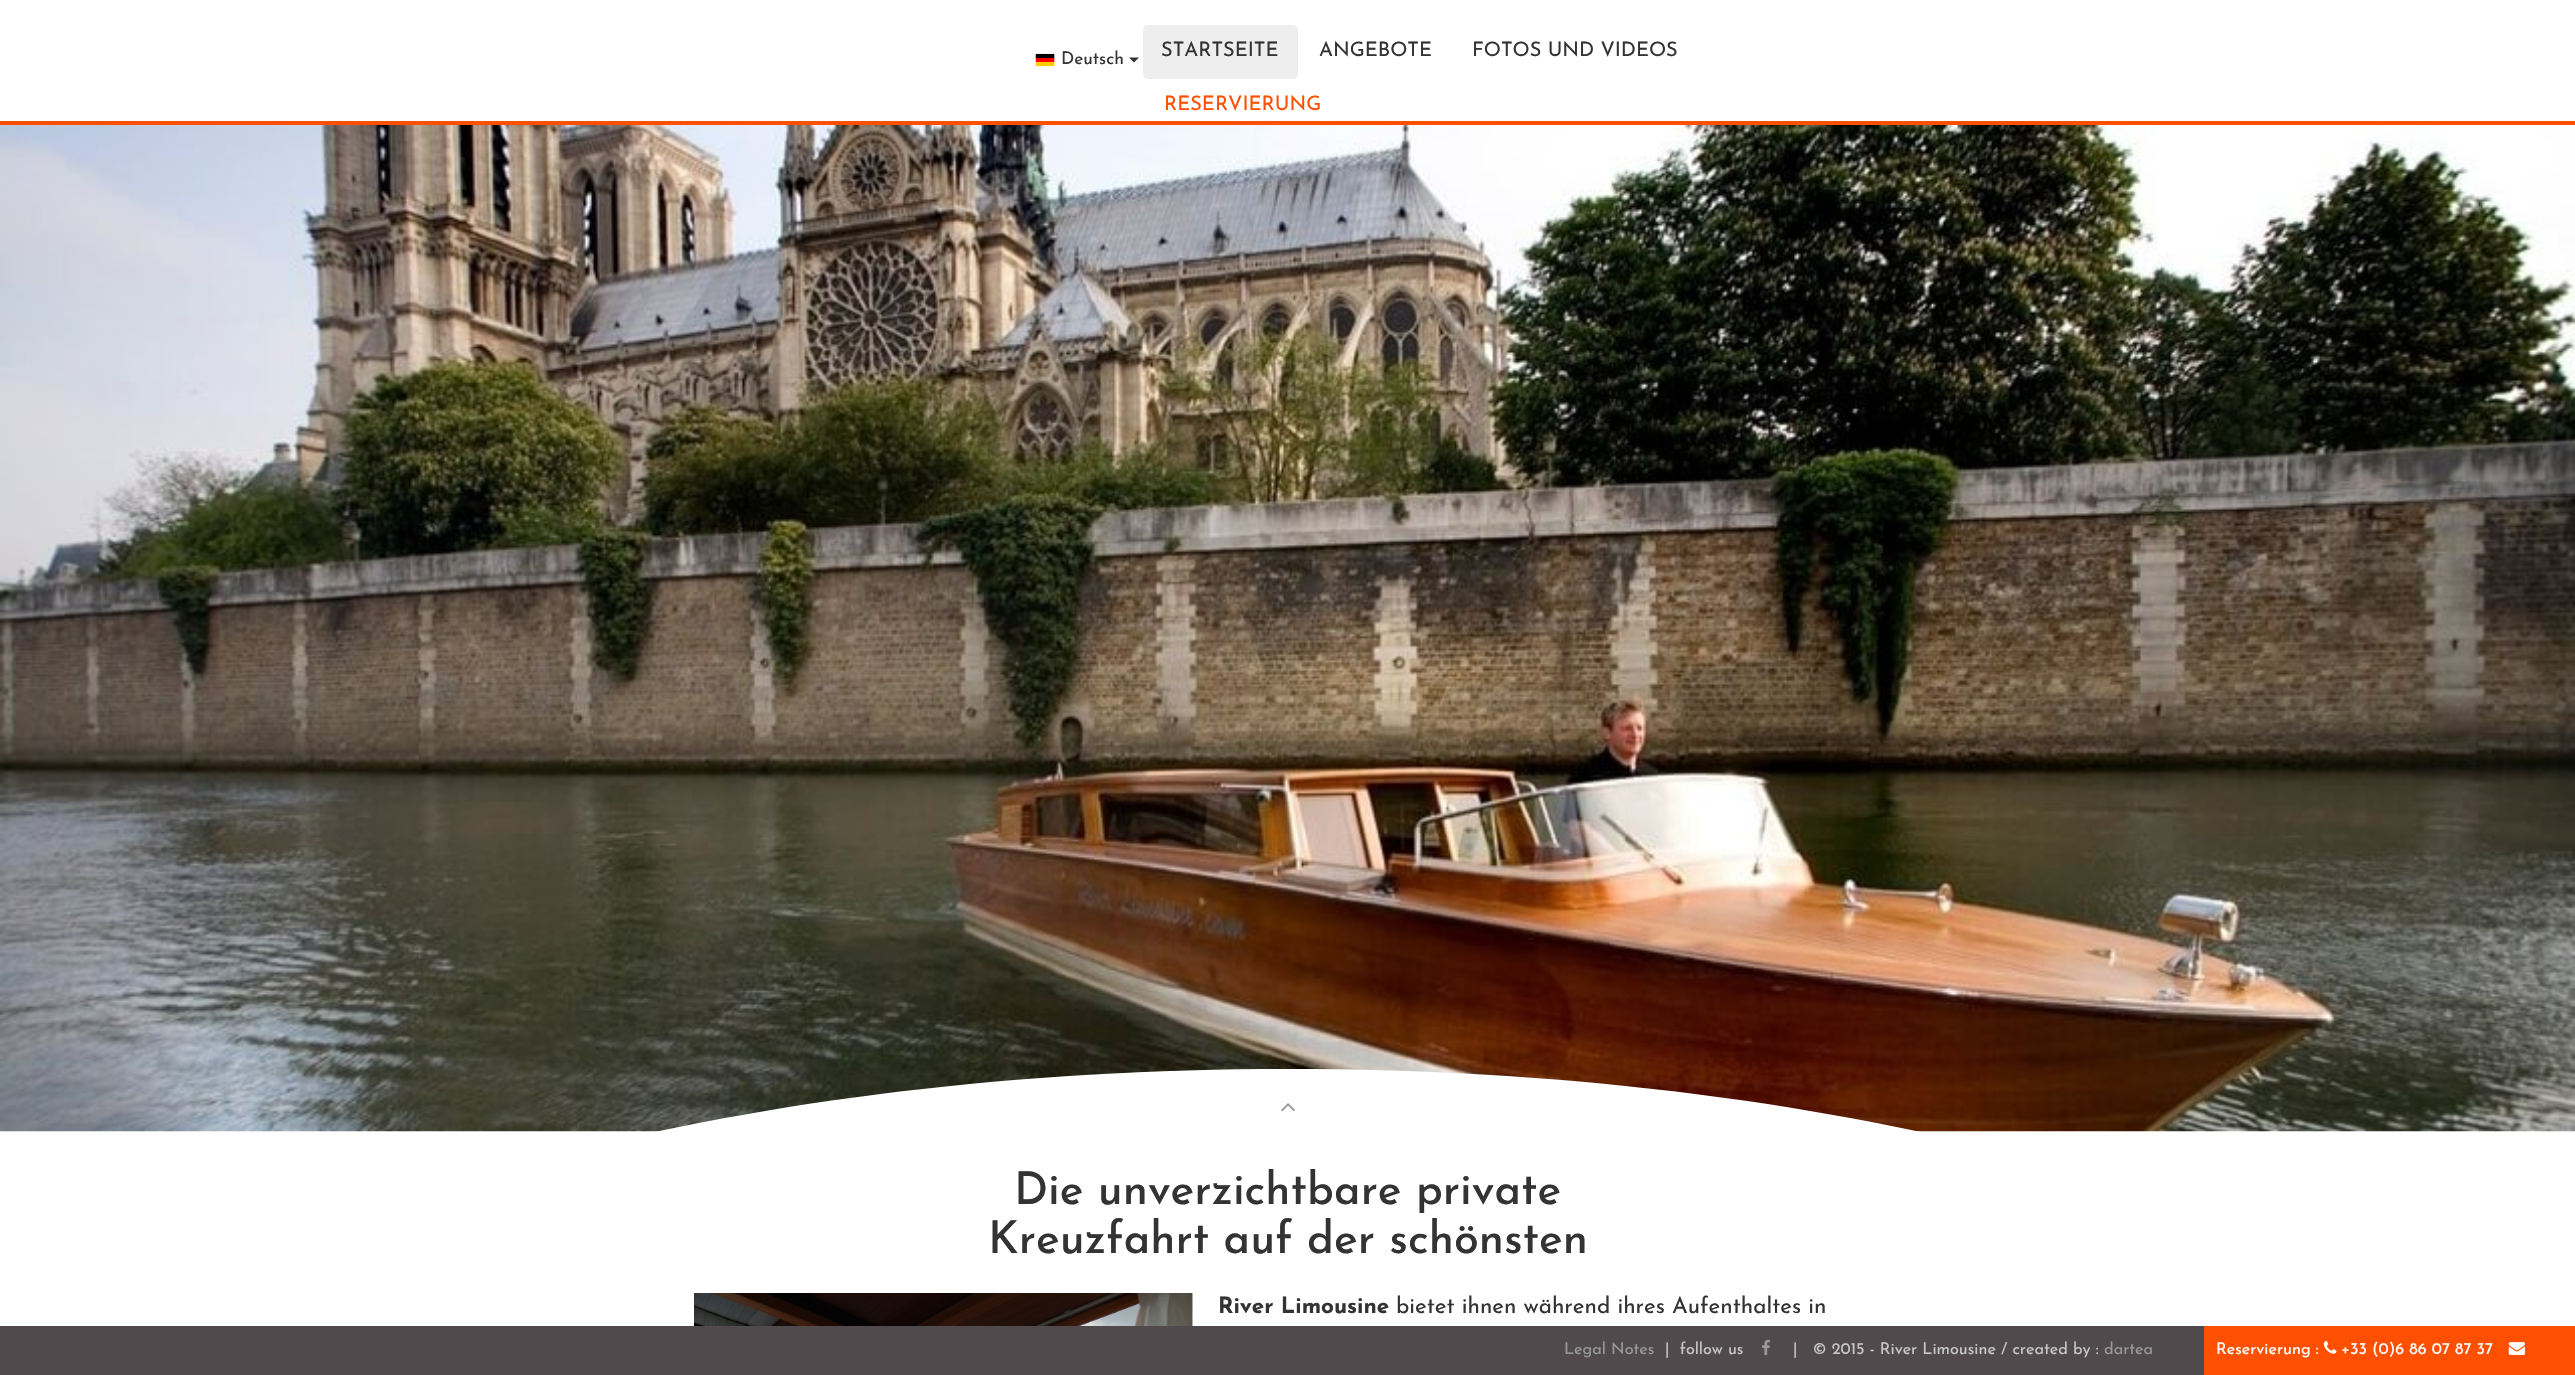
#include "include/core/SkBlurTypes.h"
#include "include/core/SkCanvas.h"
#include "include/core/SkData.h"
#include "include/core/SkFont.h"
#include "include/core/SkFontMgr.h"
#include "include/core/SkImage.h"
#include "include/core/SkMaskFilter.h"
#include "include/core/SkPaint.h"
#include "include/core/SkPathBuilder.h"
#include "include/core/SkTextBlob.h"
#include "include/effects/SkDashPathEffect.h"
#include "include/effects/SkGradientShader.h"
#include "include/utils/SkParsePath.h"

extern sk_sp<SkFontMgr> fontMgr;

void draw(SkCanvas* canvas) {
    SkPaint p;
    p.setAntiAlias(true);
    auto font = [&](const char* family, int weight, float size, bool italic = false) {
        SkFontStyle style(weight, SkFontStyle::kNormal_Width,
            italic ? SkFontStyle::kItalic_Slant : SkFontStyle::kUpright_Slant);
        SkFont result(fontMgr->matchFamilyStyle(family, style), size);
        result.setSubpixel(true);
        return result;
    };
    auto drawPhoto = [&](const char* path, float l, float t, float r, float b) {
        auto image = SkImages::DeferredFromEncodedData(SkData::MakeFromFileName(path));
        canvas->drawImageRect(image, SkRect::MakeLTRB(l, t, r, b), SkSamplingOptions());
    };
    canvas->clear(0xFFFFFFFF);
    p.setColor(0xFFFE5000);
    canvas->drawRect(SkRect::MakeLTRB(0, 121, 2575, 125), p);
    drawPhoto("media/1.png", 1035, 53, 1055, 67);
    auto font1 = font("Josefin Sans", 400, 17.5f);
    p.setColor(0xFF333333);
    canvas->drawString("Deutsch", 1061, 64, font1, p);
    canvas->drawPath(SkPathBuilder().moveTo(1129, 57.5f).lineTo(1139, 57.5f).lineTo(1134, 62.5f).close().detach(), p);
    p.setColor(0xFFEEEEEE);
    canvas->drawRoundRect(SkRect::MakeLTRB(1143, 25, 1298, 79), 5, 5, p);
    auto font2 = font("Josefin Sans", 400, 20);
    p.setColor(0xFF333333);
    {
        const struct { const char* s; float x, y; } items[] = {
            {"STARTSEITE", 1161, 56},
            {"ANGEBOTE", 1319, 56},
            {"FOTOS UND VIDEOS", 1472, 56},
        };
        for (auto [s, x, y] : items) {
            canvas->drawString(s, x, y, font2, p);
        }
    }
    p.setColor(0xFFFE5000);
    canvas->drawString("RESERVIERUNG", 1164, 110, font2, p);
    drawPhoto("media/2.png", 0, 125, 2575, 1132);
    p.setColor(0xFFFFFFFF);
    canvas->drawPath(SkPathBuilder().moveTo(1288, 1069).cubicTo(1999, 1069, 2575, 1288, 2575, 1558).lineTo(2575, 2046).lineTo(0, 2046).lineTo(0, 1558).cubicTo(0, 1288, 576, 1069, 1288, 1069).close().detach(), p);
    drawPhoto("media/3.png", 1281, 1103, 1295, 1112);
    auto font3 = font("Josefin Sans", 500, 45);
    p.setColor(0xFF333333);
    canvas->drawString("Die unverzichtbare private", 1014, 1204, font3, p);
    canvas->drawString("Kreuzfahrt auf der schönsten", 988, 1253, font3, p);
    drawPhoto("media/4.png", 694, 1293, 1193, 1326);
    auto font4 = font("Josefin Sans", 700, 22.5f);
    canvas->drawString("River Limousine", 1218, 1313, font4, p);
    auto font5 = font("Josefin Sans", 400, 22.5f);
    canvas->drawString("bietet ihnen während ihres Aufenthaltes in", 1396, 1313, font5, p);
    p.setColor(0xFF504A4C);
    canvas->drawRect(SkRect::MakeLTRB(0, 1326, 2204, 1375), p);
    auto font6 = font("Josefin Sans", 400, 16.25f);
    p.setColor(0xFF999999);
    canvas->drawString("Legal Notes", 1564, 1354, font6, p);
    p.setColor(0xFFC7C7C7);
    canvas->drawString("|  follow us", 1665, 1354, font6, p);
    drawPhoto("media/5.png", 1762, 1339, 1770, 1355);
    canvas->drawString("|   © 2015 - River Limousine / created by :", 1793, 1354, font6, p);
    p.setColor(0xFF999999);
    canvas->drawString("dartea", 2104, 1354, font6, p);
    p.setColor(0xFFFE5000);
    canvas->drawRect(SkRect::MakeLTRB(2204, 1326, 2575, 1375), p);
    p.setColor(0xFFFFFFFF);
    canvas->drawString("Reservierung :", 2216, 1354, font6, p);
    drawPhoto("media/6.png", 2323, 1341, 2337, 1354);
    canvas->drawString("+33 (0)6 86 07 87 37", 2341, 1354, font6, p);
    drawPhoto("media/7.png", 2508, 1342, 2525, 1355);
}
